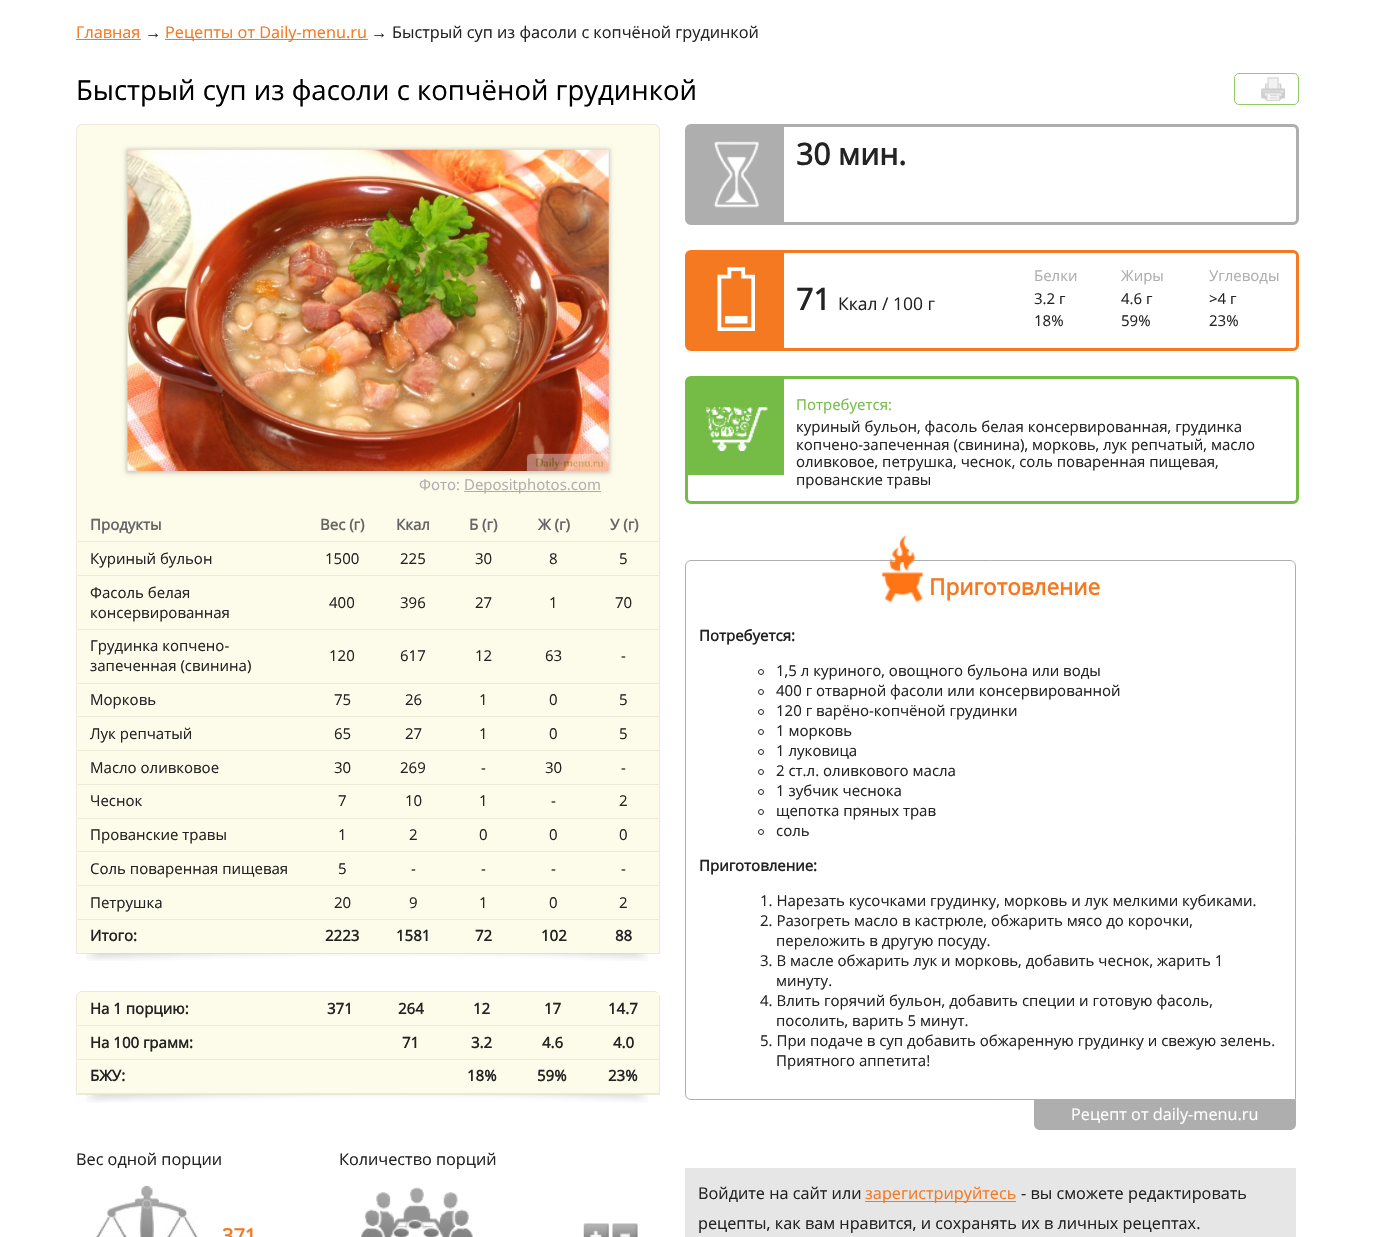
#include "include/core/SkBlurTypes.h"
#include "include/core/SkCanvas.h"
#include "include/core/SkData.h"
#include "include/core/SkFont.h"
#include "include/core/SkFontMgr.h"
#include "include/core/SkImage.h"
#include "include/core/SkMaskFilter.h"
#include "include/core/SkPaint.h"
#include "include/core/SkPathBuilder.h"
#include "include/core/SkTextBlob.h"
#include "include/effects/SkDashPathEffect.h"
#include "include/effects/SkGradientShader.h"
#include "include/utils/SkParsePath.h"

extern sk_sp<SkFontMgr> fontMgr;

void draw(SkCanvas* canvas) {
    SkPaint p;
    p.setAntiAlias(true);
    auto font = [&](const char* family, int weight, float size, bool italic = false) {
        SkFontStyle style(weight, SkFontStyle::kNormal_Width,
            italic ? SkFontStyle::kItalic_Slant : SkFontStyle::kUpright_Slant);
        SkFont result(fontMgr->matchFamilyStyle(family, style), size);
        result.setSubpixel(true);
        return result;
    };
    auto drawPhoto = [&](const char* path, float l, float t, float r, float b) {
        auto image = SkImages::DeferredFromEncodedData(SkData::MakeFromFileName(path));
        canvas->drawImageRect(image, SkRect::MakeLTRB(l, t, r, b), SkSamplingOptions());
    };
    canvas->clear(0xFFFFFFFF);
    auto font1 = font("Open Sans", 400, 16.25f);
    p.setColor(0xFFF47920);
    canvas->drawString("Главная", 76, 38, font1, p);
    canvas->drawRect(SkRect::MakeLTRB(76, 39, 141, 40), p);
    auto font2 = font("Liberation Sans", 400, 16.25f);
    p.setColor(0xFF232323);
    canvas->drawString("→", 145, 38, font2, p);
    p.setColor(0xFFF47920);
    canvas->drawRect(SkRect::MakeLTRB(165, 39, 368, 40), p);
    canvas->drawString("Рецепты от Daily-menu.ru", 165, 38, font1, p);
    p.setColor(0xFF232323);
    canvas->drawString("→", 371, 38, font2, p);
    canvas->drawString("Быстрый суп из фасоли с копчёной грудинкой", 392, 38, font1, p);
    auto font3 = font("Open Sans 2", 400, 27.5f);
    p.setColor(0xFF000000);
    canvas->drawString("Быстрый суп из фасоли с копчёной грудинкой", 76, 100, font3, p);
    p.setStyle(SkPaint::kStroke_Style);
    p.setStrokeWidth(1);
    p.setColor(0xFF94CA65);
    canvas->drawRoundRect(SkRect::MakeLTRB(1234.5f, 73.5f, 1298.5f, 104.5f), 4.5f, 4.5f, p);
    drawPhoto("media/1.png", 1261, 77, 1285, 101);
    p.setStyle(SkPaint::kFill_Style);
    p.setColor(0xFFFDFBE9);
    canvas->drawPath(SkPathBuilder().moveTo(82, 124.5f).lineTo(654, 124.5f).cubicTo(657, 124.5f, 659.5f, 127, 659.5f, 130).lineTo(659.5f, 953.5f).lineTo(76.5f, 953.5f).lineTo(76.5f, 130).cubicTo(76.5f, 127, 79, 124.5f, 82, 124.5f).close().detach(), p);
    p.setStyle(SkPaint::kStroke_Style);
    p.setColor(0xFFECE9D9);
    canvas->drawPath(SkPathBuilder().moveTo(82, 124.5f).lineTo(654, 124.5f).cubicTo(657, 124.5f, 659.5f, 127, 659.5f, 130).lineTo(659.5f, 953.5f).lineTo(76.5f, 953.5f).lineTo(76.5f, 130).cubicTo(76.5f, 127, 79, 124.5f, 82, 124.5f).close().detach(), p);
    p.setStyle(SkPaint::kFill_Style);
    p.setColor(0x33000000);
    p.setMaskFilter(SkMaskFilter::MakeBlur(kNormal_SkBlurStyle, 2));
    canvas->drawRect(SkRect::MakeLTRB(126, 149, 610, 473), p);
    p.setMaskFilter(nullptr);
    drawPhoto("media/2.png", 127, 149, 609, 471);
    auto font4 = font("Open Sans", 400, 15);
    p.setColor(0xFFAEAEAE);
    canvas->drawString("Фото:", 419, 490, font4, p);
    canvas->drawRect(SkRect::MakeLTRB(464, 491, 601, 492), p);
    canvas->drawString("Depositphotos.com", 464, 490, font4, p);
    p.setColor(0xFFECE9D9);
    canvas->drawRect(SkRect::MakeLTRB(78, 541, 660, 542), p);
    auto font5 = font("Open Sans", 700, 15);
    p.setColor(0xFF666666);
    {
        const struct { const char* s; float x, y; } items[] = {
            {"Продукты", 90, 530},
            {"Вес (г)", 320, 530},
            {"Ккал", 396, 530},
            {"Б (г)", 469, 530},
            {"Ж (г)", 538, 530},
            {"У (г)", 610, 530},
        };
        for (auto [s, x, y] : items) {
            canvas->drawString(s, x, y, font5, p);
        }
    }
    p.setColor(0xFF232323);
    {
        const struct { const char* s; float x, y; } items[] = {
            {"Куриный бульон", 90, 564},
            {"1500", 325, 564},
            {"225", 400, 564},
            {"30", 475, 564},
            {"8", 549, 564},
        };
        for (auto [s, x, y] : items) {
            canvas->drawString(s, x, y, font4, p);
        }
    }
    p.setColor(0xFFECE9D9);
    canvas->drawRect(SkRect::MakeLTRB(78, 575, 660, 576), p);
    p.setColor(0xFF232323);
    {
        const struct { const char* s; float x, y; } items[] = {
            {"5", 619, 564},
            {"Фасоль белая", 90, 598},
            {"консервированная", 90, 618},
            {"400", 329, 608},
            {"396", 400, 608},
            {"27", 475, 608},
            {"1", 549, 608},
        };
        for (auto [s, x, y] : items) {
            canvas->drawString(s, x, y, font4, p);
        }
    }
    p.setColor(0xFFECE9D9);
    canvas->drawRect(SkRect::MakeLTRB(78, 629, 660, 630), p);
    p.setColor(0xFF232323);
    {
        const struct { const char* s; float x, y; } items[] = {
            {"70", 615, 608},
            {"Грудинка копчено-", 90, 651},
            {"запеченная (свинина)", 90, 671},
            {"120", 329, 661},
            {"617", 400, 661},
            {"12", 475, 661},
            {"63", 545, 661},
        };
        for (auto [s, x, y] : items) {
            canvas->drawString(s, x, y, font4, p);
        }
    }
    p.setColor(0xFFECE9D9);
    canvas->drawRect(SkRect::MakeLTRB(78, 683, 660, 684), p);
    p.setColor(0xFF232323);
    {
        const struct { const char* s; float x, y; } items[] = {
            {"-", 621, 661},
            {"Морковь", 90, 705},
            {"75", 334, 705},
            {"26", 405, 705},
            {"1", 479, 705},
            {"0", 549, 705},
        };
        for (auto [s, x, y] : items) {
            canvas->drawString(s, x, y, font4, p);
        }
    }
    p.setColor(0xFFECE9D9);
    canvas->drawRect(SkRect::MakeLTRB(78, 716, 660, 717), p);
    p.setColor(0xFF232323);
    {
        const struct { const char* s; float x, y; } items[] = {
            {"5", 619, 705},
            {"Лук репчатый", 90, 739},
            {"65", 334, 739},
            {"27", 405, 739},
            {"1", 479, 739},
            {"0", 549, 739},
        };
        for (auto [s, x, y] : items) {
            canvas->drawString(s, x, y, font4, p);
        }
    }
    p.setColor(0xFFECE9D9);
    canvas->drawRect(SkRect::MakeLTRB(78, 750, 660, 751), p);
    p.setColor(0xFF232323);
    {
        const struct { const char* s; float x, y; } items[] = {
            {"5", 619, 739},
            {"Масло оливковое", 90, 773},
            {"30", 334, 773},
            {"269", 400, 773},
            {"-", 481, 773},
            {"30", 545, 773},
        };
        for (auto [s, x, y] : items) {
            canvas->drawString(s, x, y, font4, p);
        }
    }
    p.setColor(0xFFECE9D9);
    canvas->drawRect(SkRect::MakeLTRB(78, 784, 660, 785), p);
    p.setColor(0xFF232323);
    {
        const struct { const char* s; float x, y; } items[] = {
            {"-", 621, 773},
            {"Чеснок", 90, 806},
            {"7", 338, 806},
            {"10", 405, 806},
            {"1", 479, 806},
            {"-", 551, 806},
        };
        for (auto [s, x, y] : items) {
            canvas->drawString(s, x, y, font4, p);
        }
    }
    p.setColor(0xFFECE9D9);
    canvas->drawRect(SkRect::MakeLTRB(78, 818, 660, 819), p);
    p.setColor(0xFF232323);
    {
        const struct { const char* s; float x, y; } items[] = {
            {"2", 619, 806},
            {"Прованские травы", 90, 840},
            {"1", 338, 840},
            {"2", 409, 840},
            {"0", 479, 840},
            {"0", 549, 840},
        };
        for (auto [s, x, y] : items) {
            canvas->drawString(s, x, y, font4, p);
        }
    }
    p.setColor(0xFFECE9D9);
    canvas->drawRect(SkRect::MakeLTRB(78, 851, 660, 852), p);
    p.setColor(0xFF232323);
    {
        const struct { const char* s; float x, y; } items[] = {
            {"0", 619, 840},
            {"Соль поваренная пищевая", 90, 874},
            {"5", 338, 874},
            {"-", 411, 874},
            {"-", 481, 874},
            {"-", 551, 874},
        };
        for (auto [s, x, y] : items) {
            canvas->drawString(s, x, y, font4, p);
        }
    }
    p.setColor(0xFFECE9D9);
    canvas->drawRect(SkRect::MakeLTRB(78, 885, 660, 886), p);
    p.setColor(0xFF232323);
    {
        const struct { const char* s; float x, y; } items[] = {
            {"-", 621, 874},
            {"Петрушка", 90, 908},
            {"20", 334, 908},
            {"9", 409, 908},
            {"1", 479, 908},
            {"0", 549, 908},
        };
        for (auto [s, x, y] : items) {
            canvas->drawString(s, x, y, font4, p);
        }
    }
    p.setColor(0xFFECE9D9);
    canvas->drawRect(SkRect::MakeLTRB(78, 919, 660, 920), p);
    p.setColor(0xFF232323);
    canvas->drawString("2", 619, 908, font4, p);
    {
        const struct { const char* s; float x, y; } items[] = {
            {"Итого:", 90, 941},
            {"2223", 325, 941},
            {"1581", 396, 941},
            {"72", 475, 941},
            {"102", 541, 941},
            {"88", 615, 941},
        };
        for (auto [s, x, y] : items) {
            canvas->drawString(s, x, y, font5, p);
        }
    }
    drawPhoto("media/3.png", 86, 953, 648, 961);
    p.setColor(0xFFFDFBE9);
    canvas->drawPath(SkPathBuilder().moveTo(82, 991.5f).lineTo(654, 991.5f).cubicTo(657, 991.5f, 659.5f, 994, 659.5f, 997).lineTo(659.5f, 1094.5f).lineTo(76.5f, 1094.5f).lineTo(76.5f, 997).cubicTo(76.5f, 994, 79, 991.5f, 82, 991.5f).close().detach(), p);
    p.setStyle(SkPaint::kStroke_Style);
    p.setColor(0xFFECE9D9);
    canvas->drawPath(SkPathBuilder().moveTo(82, 991.5f).lineTo(654, 991.5f).cubicTo(657, 991.5f, 659.5f, 994, 659.5f, 997).lineTo(659.5f, 1094.5f).lineTo(76.5f, 1094.5f).lineTo(76.5f, 997).cubicTo(76.5f, 994, 79, 991.5f, 82, 991.5f).close().detach(), p);
    p.setStyle(SkPaint::kFill_Style);
    p.setColor(0xFFFDFBE9);
    canvas->drawRect(SkRect::MakeLTRB(78, 993, 659, 996), p);
    p.setColor(0xFF232323);
    {
        const struct { const char* s; float x, y; } items[] = {
            {"На 1 порцию:", 90, 1014},
            {"371", 327, 1014},
            {"264", 398, 1014},
            {"12", 473, 1014},
            {"17", 544, 1014},
        };
        for (auto [s, x, y] : items) {
            canvas->drawString(s, x, y, font5, p);
        }
    }
    p.setColor(0xFFECE9D9);
    canvas->drawRect(SkRect::MakeLTRB(78, 1025, 660, 1026), p);
    p.setColor(0xFF232323);
    {
        const struct { const char* s; float x, y; } items[] = {
            {"14.7", 608, 1014},
            {"На 100 грамм:", 90, 1048},
            {"71", 402, 1048},
            {"3.2", 471, 1048},
            {"4.6", 542, 1048},
        };
        for (auto [s, x, y] : items) {
            canvas->drawString(s, x, y, font5, p);
        }
    }
    p.setColor(0xFFECE9D9);
    canvas->drawRect(SkRect::MakeLTRB(78, 1059, 660, 1060), p);
    p.setColor(0xFF232323);
    {
        const struct { const char* s; float x, y; } items[] = {
            {"4.0", 613, 1048},
            {"БЖУ:", 90, 1081},
            {"18%", 467, 1081},
            {"59%", 537, 1081},
        };
        for (auto [s, x, y] : items) {
            canvas->drawString(s, x, y, font5, p);
        }
    }
    p.setColor(0xFFECE9D9);
    canvas->drawRect(SkRect::MakeLTRB(78, 1093, 660, 1094), p);
    p.setColor(0xFF232323);
    canvas->drawString("23%", 608, 1081, font5, p);
    drawPhoto("media/4.png", 86, 1094, 648, 1103);
    canvas->drawString("Вес одной порции", 76, 1165, font1, p);
    canvas->drawString("Количество порций", 339, 1165, font1, p);
    drawPhoto("media/5.png", 95, 1186, 198, 1237);
    auto font6 = font("Open Sans", 700, 20);
    p.setColor(0xFFF47920);
    canvas->drawString("371", 222, 1243, font6, p);
    drawPhoto("media/6.png", 361, 1187, 473, 1237);
    drawPhoto("media/7.png", 583, 1223, 609, 1237);
    drawPhoto("media/8.png", 612, 1223, 638, 1237);
    p.setStyle(SkPaint::kStroke_Style);
    p.setStrokeWidth(3);
    p.setColor(0xFFAEAEAE);
    canvas->drawRoundRect(SkRect::MakeLTRB(686.5f, 125.5f, 1297.5f, 223.5f), 4.5f, 4.5f, p);
    p.setStyle(SkPaint::kFill_Style);
    canvas->drawRect(SkRect::MakeLTRB(688, 127, 784, 222), p);
    drawPhoto("media/9.png", 713, 141, 759, 208);
    auto font7 = font("Open Sans", 700, 30);
    p.setColor(0xFF232323);
    canvas->drawString("30 мин.", 796, 165, font7, p);
    p.setStyle(SkPaint::kStroke_Style);
    p.setColor(0xFFF47920);
    canvas->drawRoundRect(SkRect::MakeLTRB(686.5f, 251.5f, 1297.5f, 349.5f), 4.5f, 4.5f, p);
    p.setStyle(SkPaint::kFill_Style);
    canvas->drawRect(SkRect::MakeLTRB(688, 253, 784, 348), p);
    drawPhoto("media/10.png", 717, 267, 755, 331);
    p.setColor(0xFF232323);
    canvas->drawString("71", 796, 310, font7, p);
    auto font8 = font("Open Sans", 400, 17.5f);
    canvas->drawString("Ккал / 100 г", 838, 310, font8, p);
    p.setColor(0xFFAEAEAE);
    {
        const struct { const char* s; float x, y; } items[] = {
            {"Белки", 1034, 281},
            {"Жиры", 1121, 281},
            {"Углеводы", 1209, 281},
        };
        for (auto [s, x, y] : items) {
            canvas->drawString(s, x, y, font4, p);
        }
    }
    p.setColor(0xFF232323);
    {
        const struct { const char* s; float x, y; } items[] = {
            {"3.2 г", 1034, 304},
            {"4.6 г", 1121, 304},
            {">4 г", 1209, 304},
            {"18%", 1034, 326},
            {"59%", 1121, 326},
            {"23%", 1209, 326},
        };
        for (auto [s, x, y] : items) {
            canvas->drawString(s, x, y, font4, p);
        }
    }
    p.setStyle(SkPaint::kStroke_Style);
    p.setColor(0xFF74BC45);
    canvas->drawRoundRect(SkRect::MakeLTRB(686.5f, 377.5f, 1297.5f, 502.5f), 4.5f, 4.5f, p);
    p.setStyle(SkPaint::kFill_Style);
    canvas->drawRect(SkRect::MakeLTRB(688, 379, 784, 475), p);
    drawPhoto("media/11.png", 705, 406, 768, 451);
    canvas->drawString("Потребуется:", 796, 410, font4, p);
    p.setColor(0xFF232323);
    {
        const struct { const char* s; float x, y; } items[] = {
            {"куриный бульон, фасоль белая консервированная, грудинка", 796, 432},
            {"копчено-запеченная (свинина), морковь, лук репчатый, масло", 796, 450},
            {"оливковое, петрушка, чеснок, соль поваренная пищевая,", 796, 467},
            {"прованские травы", 796, 485},
        };
        for (auto [s, x, y] : items) {
            canvas->drawString(s, x, y, font4, p);
        }
    }
    p.setStyle(SkPaint::kStroke_Style);
    p.setStrokeWidth(1);
    p.setColor(0xFFAEAEAE);
    canvas->drawPath(SkPathBuilder().moveTo(691, 560.5f).lineTo(1290, 560.5f).cubicTo(1293, 560.5f, 1295.5f, 563, 1295.5f, 566).lineTo(1295.5f, 1099.5f).lineTo(691, 1099.5f).cubicTo(688, 1099.5f, 685.5f, 1097, 685.5f, 1094).lineTo(685.5f, 566).cubicTo(685.5f, 563, 688, 560.5f, 691, 560.5f).close().detach(), p);
    drawPhoto("media/12.png", 881, 534, 924, 603);
    auto font9 = font("Open Sans", 700, 22.5f);
    p.setStyle(SkPaint::kFill_Style);
    p.setColor(0xFFF47920);
    canvas->drawString("Приготовление", 929, 595, font9, p);
    p.setColor(0xFF232323);
    canvas->drawString("Потребуется:", 699, 641, font5, p);
    p.setStyle(SkPaint::kStroke_Style);
    canvas->drawCircle(761, 672, 2.5f, p);
    p.setStyle(SkPaint::kFill_Style);
    canvas->drawString("1,5 л куриного, овощного бульона или воды", 776, 676, font4, p);
    p.setStyle(SkPaint::kStroke_Style);
    canvas->drawCircle(761, 692, 2.5f, p);
    p.setStyle(SkPaint::kFill_Style);
    canvas->drawString("400 г отварной фасоли или консервированной", 776, 696, font4, p);
    p.setStyle(SkPaint::kStroke_Style);
    canvas->drawCircle(761, 712, 2.5f, p);
    p.setStyle(SkPaint::kFill_Style);
    canvas->drawString("120 г варёно-копчёной грудинки", 776, 716, font4, p);
    p.setStyle(SkPaint::kStroke_Style);
    canvas->drawCircle(761, 732, 2.5f, p);
    p.setStyle(SkPaint::kFill_Style);
    canvas->drawString("1 морковь", 776, 736, font4, p);
    p.setStyle(SkPaint::kStroke_Style);
    canvas->drawCircle(761, 752, 2.5f, p);
    p.setStyle(SkPaint::kFill_Style);
    canvas->drawString("1 луковица", 776, 756, font4, p);
    p.setStyle(SkPaint::kStroke_Style);
    canvas->drawCircle(761, 772, 2.5f, p);
    p.setStyle(SkPaint::kFill_Style);
    canvas->drawString("2 ст.л. оливкового масла", 776, 776, font4, p);
    p.setStyle(SkPaint::kStroke_Style);
    canvas->drawCircle(761, 792, 2.5f, p);
    p.setStyle(SkPaint::kFill_Style);
    canvas->drawString("1 зубчик чеснока", 776, 796, font4, p);
    p.setStyle(SkPaint::kStroke_Style);
    canvas->drawCircle(761, 812, 2.5f, p);
    p.setStyle(SkPaint::kFill_Style);
    canvas->drawString("щепотка пряных трав", 776, 816, font4, p);
    p.setStyle(SkPaint::kStroke_Style);
    canvas->drawCircle(761, 832, 2.5f, p);
    p.setStyle(SkPaint::kFill_Style);
    canvas->drawString("соль", 776, 836, font4, p);
    canvas->drawString("Приготовление:", 699, 871, font5, p);
    {
        const struct { const char* s; float x, y; } items[] = {
            {"1. Нарезать кусочками грудинку, морковь и лук мелкими кубиками.", 760, 906},
            {"2. Разогреть масло в кастрюле, обжарить мясо до корочки,", 760, 926},
            {"переложить в другую посуду.", 776, 946},
            {"3. В масле обжарить лук и морковь, добавить чеснок, жарить 1", 760, 966},
            {"минуту.", 776, 986},
            {"4. Влить горячий бульон, добавить специи и готовую фасоль,", 760, 1006},
            {"посолить, варить 5 минут.", 776, 1026},
            {"5. При подаче в суп добавить обжаренную грудинку и свежую зелень.", 760, 1046},
            {"Приятного аппетита!", 776, 1066},
        };
        for (auto [s, x, y] : items) {
            canvas->drawString(s, x, y, font4, p);
        }
    }
    p.setColor(0xFFAEAEAE);
    canvas->drawPath(SkPathBuilder().moveTo(1034, 1100).lineTo(1296, 1100).lineTo(1296, 1124).cubicTo(1296, 1127.5f, 1293.5f, 1130, 1290, 1130).lineTo(1040, 1130).cubicTo(1036.5f, 1130, 1034, 1127.5f, 1034, 1124).close().detach(), p);
    p.setColor(0xFFFFFFFF);
    canvas->drawString("Рецепт от daily-menu.ru", 1071, 1120, font1, p);
    p.setColor(0xFFE6E6E6);
    canvas->drawRect(SkRect::MakeLTRB(685, 1168, 1296, 1237), p);
    p.setColor(0xFF232323);
    canvas->drawString("Войдите на сайт или", 698, 1199, font1, p);
    p.setColor(0xFFF47920);
    canvas->drawRect(SkRect::MakeLTRB(865, 1201, 1016, 1202), p);
    canvas->drawString("зарегистрируйтесь", 865, 1199, font1, p);
    p.setColor(0xFF232323);
    canvas->drawString("- вы сможете редактировать", 1021, 1199, font1, p);
    canvas->drawString("рецепты, как вам нравится, и сохранять их в личных рецептах.", 698, 1229, font1, p);
}
